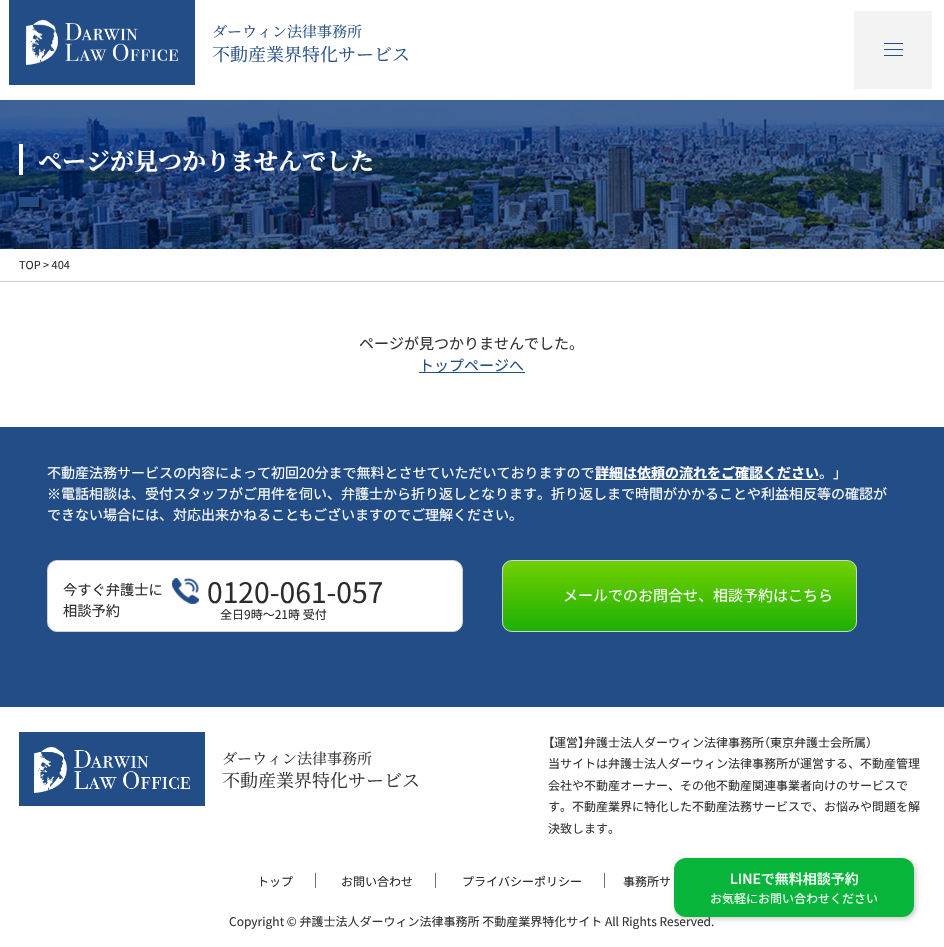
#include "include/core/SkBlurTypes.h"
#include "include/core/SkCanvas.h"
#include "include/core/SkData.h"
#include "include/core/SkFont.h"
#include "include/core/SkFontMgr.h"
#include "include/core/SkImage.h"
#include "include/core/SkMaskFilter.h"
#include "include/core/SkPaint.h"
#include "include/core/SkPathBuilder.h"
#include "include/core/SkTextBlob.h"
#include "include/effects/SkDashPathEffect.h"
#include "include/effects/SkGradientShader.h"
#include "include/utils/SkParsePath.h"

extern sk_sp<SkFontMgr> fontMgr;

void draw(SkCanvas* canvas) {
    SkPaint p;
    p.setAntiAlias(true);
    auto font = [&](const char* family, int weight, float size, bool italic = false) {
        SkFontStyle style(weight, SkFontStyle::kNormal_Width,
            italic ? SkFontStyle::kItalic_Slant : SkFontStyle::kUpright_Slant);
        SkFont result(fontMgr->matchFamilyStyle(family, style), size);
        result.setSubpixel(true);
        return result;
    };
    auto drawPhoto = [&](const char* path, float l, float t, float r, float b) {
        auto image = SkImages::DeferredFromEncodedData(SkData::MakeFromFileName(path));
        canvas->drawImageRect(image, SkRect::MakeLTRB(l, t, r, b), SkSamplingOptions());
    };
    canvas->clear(0xFFFFFFFF);
    p.setColor(0xFF234D86);
    canvas->drawRect(SkRect::MakeLTRB(9, 0, 195, 85), p);
    drawPhoto("media/1.png", 25, 19, 178, 65);
    auto font1 = font("Noto Serif JP", 400, 15);
    canvas->drawString("ダーウィン法律事務所", 212, 37, font1, p);
    auto font2 = font("Noto Serif JP", 400, 18);
    canvas->drawString("不動産業界特化サービス", 212, 61, font2, p);
    {
        const struct { float l, t, r, b; SkColor color; } items[] = {
            {854, 11, 932, 89, 0xFFF3F3F3},
            {884, 43, 903, 44, 0xFF234D86},
            {884, 49, 903, 50, 0xFF234D86},
            {884, 55, 903, 56, 0xFF234D86},
        };
        for (auto [l, t, r, b, color] : items) {
            p.setColor(color);
            canvas->drawRect(SkRect::MakeLTRB(l, t, r, b), p);
        }
    }
    drawPhoto("media/2.png", 0, 100, 944, 249);
    p.setColor(0xFFFFFFFF);
    canvas->drawRect(SkRect::MakeLTRB(19, 144, 23, 175), p);
    auto font3 = font("Noto Serif JP", 700, 24);
    canvas->drawString("ページが見つかりませんでした", 38, 170, font3, p);
    p.setColor(0xFF000000);
    p.setMaskFilter(SkMaskFilter::MakeBlur(kNormal_SkBlurStyle, 1.5f));
    canvas->drawRect(SkRect::MakeLTRB(21, 198, 41, 208), p);
    p.setMaskFilter(nullptr);
    p.setColor(0xFF234D86);
    canvas->drawRect(SkRect::MakeLTRB(19, 197, 39, 207), p);
    p.setColor(0xFFCCCCCC);
    canvas->drawRect(SkRect::MakeLTRB(0, 281, 944, 282), p);
    auto font4 = font("Noto Sans JP", 400, 11);
    p.setColor(0xFF2C2C2C);
    canvas->drawString("TOP", 19, 269, font4, p);
    p.setColor(0xFF333333);
    canvas->drawString("> 404", 43, 269, font4, p);
    auto font5 = font("Noto Sans JP", 400, 15);
    canvas->drawString("ページが見つかりませんでした。", 359, 349, font5, p);
    p.setColor(0xFF234D86);
    canvas->drawRect(SkRect::MakeLTRB(419, 372, 525, 373), p);
    canvas->drawString("トップページへ", 419, 371, font5, p);
    canvas->drawRect(SkRect::MakeLTRB(0, 427, 944, 707), p);
    auto font6 = font("Noto Sans JP", 400, 14);
    p.setColor(0xFFFFFFFF);
    canvas->drawString("不動産法務サービスの内容によって初回20分まで無料とさせていただいておりますので", 47, 478, font6, p);
    canvas->drawRect(SkRect::MakeLTRB(595, 479, 819, 480), p);
    auto font7 = font("Noto Sans JP", 700, 14);
    canvas->drawString("詳細は依頼の流れをご確認ください", 595, 478, font7, p);
    canvas->drawString("。", 819, 478, font6, p);
    auto font8 = font("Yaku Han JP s", 400, 14);
    canvas->drawString("」", 833, 478, font8, p);
    canvas->drawString("※電話相談は、受付スタッフがご用件を伺い、弁護士から折り返しとなります。折り返しまで時間がかかることや利益相反等の確認が", 47, 499, font6, p);
    canvas->drawString("できない場合には、対応出来かねることもございますのでご理解ください。", 47, 520, font6, p);
    canvas->drawRoundRect(SkRect::MakeLTRB(47.5f, 560.5f, 462.5f, 631.5f), 9.5f, 9.5f, p);
    p.setStyle(SkPaint::kStroke_Style);
    p.setStrokeWidth(1);
    p.setColor(0xFFD2D2D2);
    canvas->drawRoundRect(SkRect::MakeLTRB(47.5f, 560.5f, 462.5f, 631.5f), 9.5f, 9.5f, p);
    auto font9 = font("Noto Sans JP", 400, 14.25f);
    p.setStyle(SkPaint::kFill_Style);
    p.setColor(0xFF2C2C2C);
    canvas->drawString("今すぐ弁護士に", 63, 595, font9, p);
    canvas->drawString("相談予約", 63, 616, font9, p);
    drawPhoto("media/3.png", 172, 578, 199, 604);
    auto font10 = font("Noto Sans JP", 400, 28.25f);
    canvas->drawString("0120-061-057", 207, 603, font10, p);
    auto font11 = font("Noto Sans JP", 400, 12);
    canvas->drawString("全日9時〜21時 受付", 220, 619, font11, p);
    canvas->save();
    canvas->clipPath(SkPathBuilder().moveTo(512, 560).lineTo(847, 560).cubicTo(852.5f, 560, 857, 564.5f, 857, 570).lineTo(857, 622).cubicTo(857, 627.5f, 852.5f, 632, 847, 632).lineTo(512, 632).cubicTo(506.5f, 632, 502, 627.5f, 502, 622).lineTo(502, 570).cubicTo(502, 564.5f, 506.5f, 560, 512, 560).close().detach(), true);
    {
        const SkColor colors[] = {0xFF71D000, 0xFF1EB006};
        const float stops[] = {0, 1};
        const SkPoint ends[] = {{680, 561}, {680, 631}};
        p.setShader(SkGradientShader::MakeLinear(ends, colors, stops, 2, SkTileMode::kClamp));
        p.setAlpha(255);
    }
    canvas->drawRect(SkRect::MakeLTRB(502, 561, 857, 631), p);
    canvas->restore();
    p.setStyle(SkPaint::kStroke_Style);
    p.setShader(nullptr);
    p.setColor(0xFFD2D2D2);
    canvas->drawRoundRect(SkRect::MakeLTRB(502.5f, 560.5f, 856.5f, 631.5f), 9.5f, 9.5f, p);
    p.setStyle(SkPaint::kFill_Style);
    p.setColor(0xFFFFFFFF);
    canvas->drawString("メールでのお問合せ、相談予約はこちら", 563, 601, font5, p);
    p.setColor(0xFF234D86);
    canvas->drawRect(SkRect::MakeLTRB(19, 732, 205, 806), p);
    drawPhoto("media/4.png", 34, 747, 190, 793);
    p.setColor(0xFF333333);
    canvas->drawString("ダーウィン法律事務所", 222, 764, font1, p);
    canvas->drawString("不動産業界特化サービス", 222, 787, font2, p);
    auto font12 = font("Yaku Han JP s", 400, 12);
    canvas->drawString("【", 548, 747, font12, p);
    canvas->drawString("運営", 554, 747, font11, p);
    canvas->drawString("】", 578, 747, font12, p);
    canvas->drawString("弁護士法人ダーウィン法律事務所", 584, 747, font11, p);
    canvas->drawString("（", 764, 747, font12, p);
    canvas->drawString("東京弁護士会所属", 770, 747, font11, p);
    canvas->drawString("）", 866, 747, font12, p);
    {
        const struct { const char* s; float x, y; } items[] = {
            {"当サイトは弁護士法人ダーウィン法律事務所が運営する、不動産管理", 548, 768},
            {"会社や不動産オーナー、その他不動産関連事業者向けのサービスで", 548, 790},
            {"す。不動産業界に特化した不動産法務サービスで、お悩みや問題を解", 548, 811},
            {"決致します。", 548, 833},
        };
        for (auto [s, x, y] : items) {
            canvas->drawString(s, x, y, font11, p);
        }
    }
    p.setColor(0xFF2C2C2C);
    canvas->drawString("トップ", 257, 886, font11, p);
    p.setColor(0xFF333333);
    canvas->drawString("｜", 308, 886, font5, p);
    p.setColor(0xFF2C2C2C);
    canvas->drawString("お問い合わせ", 341, 886, font11, p);
    p.setColor(0xFF333333);
    canvas->drawString("｜", 428, 886, font5, p);
    p.setColor(0xFF2C2C2C);
    canvas->drawString("プライバシーポリシー", 462, 886, font11, p);
    p.setColor(0xFF333333);
    canvas->drawString("｜", 597, 886, font5, p);
    p.setColor(0xFF2C2C2C);
    canvas->drawString("事務所サ", 623, 886, font11, p);
    p.setColor(0xFFCCCCCC);
    p.setMaskFilter(SkMaskFilter::MakeBlur(kNormal_SkBlurStyle, 2.5f));
    canvas->drawRoundRect(SkRect::MakeLTRB(676, 860, 916, 919), 12, 12, p);
    p.setMaskFilter(nullptr);
    p.setColor(0xFF333333);
    canvas->drawString("Copyright © 弁護士法人ダーウィン法律事務所 不動産業界特化サイト All Rights Reserved.", 229, 926, font11, p);
    p.setColor(0xFF07B53B);
    canvas->drawRoundRect(SkRect::MakeLTRB(674, 858, 914, 917), 12, 12, p);
    auto font13 = font("Noto Sans JP", 500, 14);
    p.setColor(0xFFFFFFFF);
    canvas->drawString("LINEで無料相談予約", 730, 884, font13, p);
    canvas->drawString("お気軽にお問い合わせください", 710, 903, font11, p);
}
